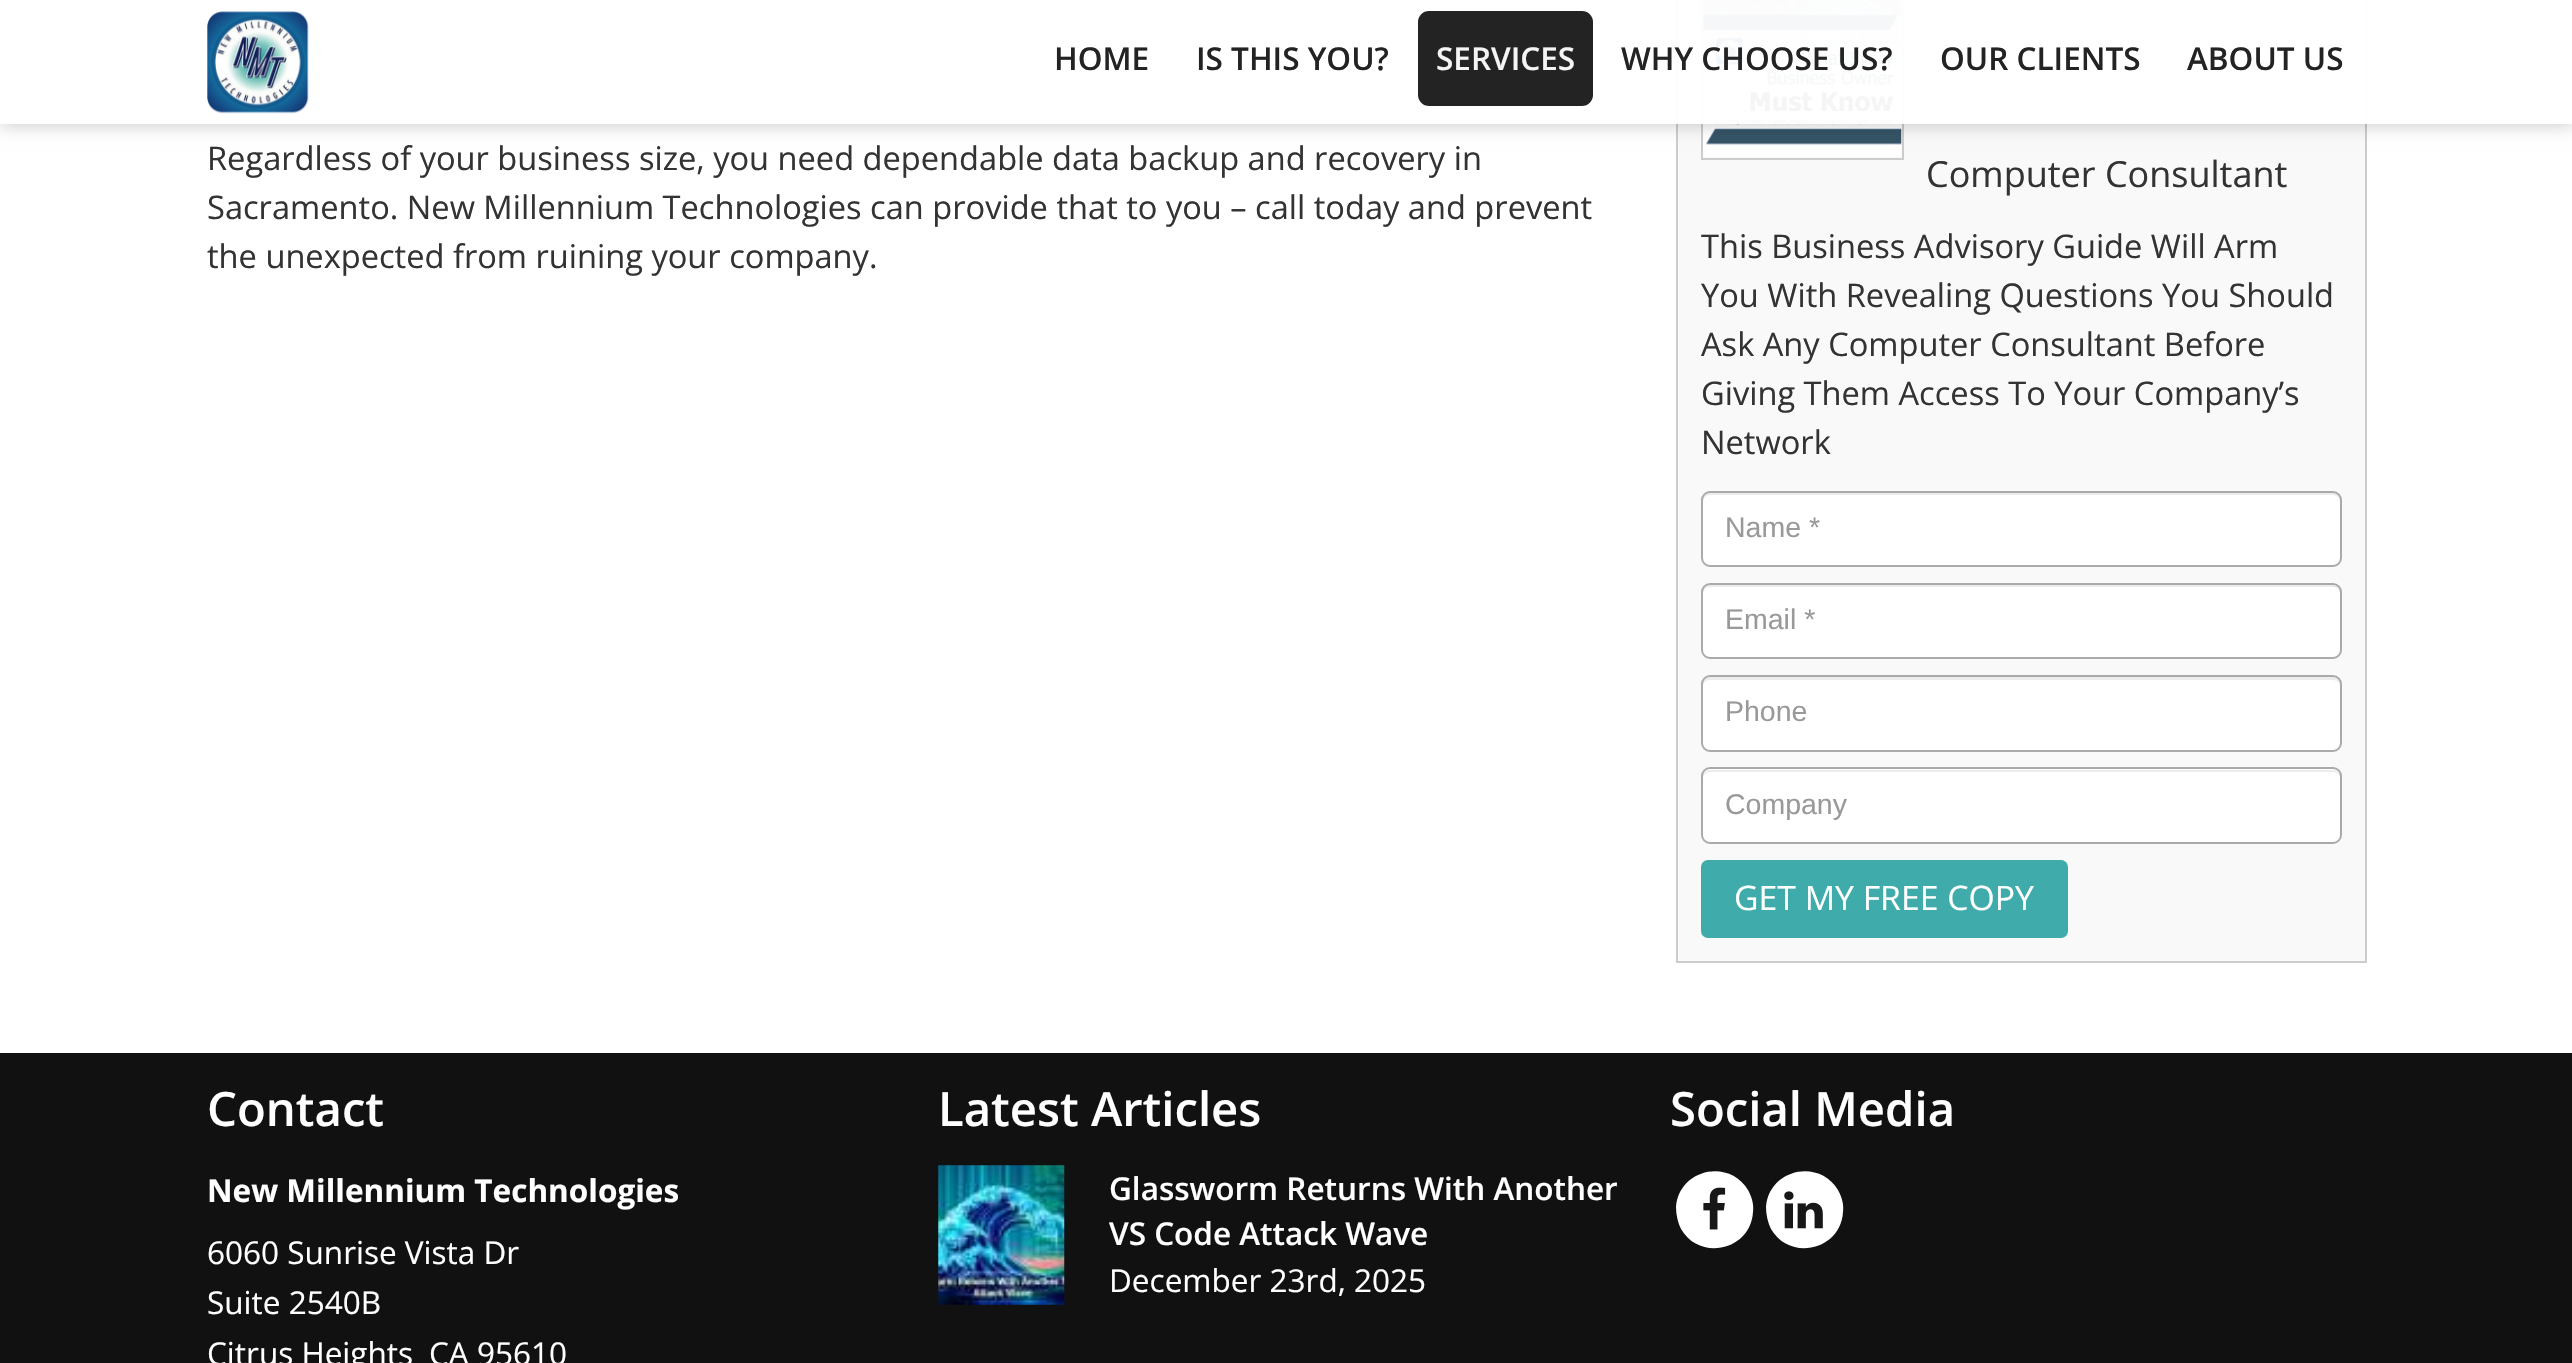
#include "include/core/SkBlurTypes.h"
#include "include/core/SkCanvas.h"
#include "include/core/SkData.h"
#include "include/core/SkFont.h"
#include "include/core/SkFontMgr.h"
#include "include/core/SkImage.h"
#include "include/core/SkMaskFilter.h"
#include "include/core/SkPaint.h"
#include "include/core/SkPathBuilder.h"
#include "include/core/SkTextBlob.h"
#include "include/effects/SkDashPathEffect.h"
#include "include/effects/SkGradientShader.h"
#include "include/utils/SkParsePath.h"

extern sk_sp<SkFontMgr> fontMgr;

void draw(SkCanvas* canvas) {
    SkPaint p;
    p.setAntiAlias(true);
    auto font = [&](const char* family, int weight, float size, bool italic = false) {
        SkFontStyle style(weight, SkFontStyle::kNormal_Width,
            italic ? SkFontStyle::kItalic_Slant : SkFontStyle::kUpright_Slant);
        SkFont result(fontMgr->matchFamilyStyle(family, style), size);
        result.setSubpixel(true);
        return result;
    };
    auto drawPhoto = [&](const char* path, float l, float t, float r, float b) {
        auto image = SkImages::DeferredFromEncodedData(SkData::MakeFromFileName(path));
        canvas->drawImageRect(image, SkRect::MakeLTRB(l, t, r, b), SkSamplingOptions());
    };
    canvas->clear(0xFFFFFFFF);
    p.setColor(0xFFF9F9F9);
    canvas->drawRect(SkRect::MakeLTRB(1677, -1, 2366, 962), p);
    p.setStyle(SkPaint::kStroke_Style);
    p.setStrokeWidth(2);
    p.setColor(0xFFCCCCCC);
    canvas->drawRect(SkRect::MakeLTRB(1677, -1, 2366, 962), p);
    canvas->drawRect(SkRect::MakeLTRB(1702, -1, 1903, 159), p);
    drawPhoto("media/2.png", 1703, 0, 1902, 157);
    canvas->save();
    canvas->clipPath(SkPathBuilder(SkPathFillType::kEvenOdd).moveTo(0, 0).lineTo(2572, 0).lineTo(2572, 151).lineTo(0, 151).close().moveTo(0, 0).lineTo(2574, 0).lineTo(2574, 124).lineTo(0, 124).close().detach(), true);
    p.setStyle(SkPaint::kFill_Style);
    p.setColor(0x30000000);
    p.setMaskFilter(SkMaskFilter::MakeBlur(kNormal_SkBlurStyle, 8));
    canvas->drawRect(SkRect::MakeLTRB(0, 2, 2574, 126), p);
    p.setMaskFilter(nullptr);
    canvas->restore();
    p.setColor(0xF2FFFFFF);
    canvas->drawRect(SkRect::MakeLTRB(0, 0, 2572, 124), p);
    drawPhoto("media/1.png", 207, 11, 309, 114);
    auto font1 = font("Open Sans", 600, 31.5f);
    p.setColor(0xFF232323);
    canvas->drawString("HOME", 1054, 70, font1, p);
    canvas->drawString("IS THIS YOU?", 1196, 70, font1, p);
    p.setColor(0xF2171717);
    canvas->drawRoundRect(SkRect::MakeLTRB(1418, 11, 1593, 106), 11, 11, p);
    p.setColor(0xFFF4F4F4);
    canvas->drawString("SERVICES", 1436, 70, font1, p);
    p.setColor(0xFF232323);
    {
        const struct { const char* s; float x, y; } items[] = {
            {"WHY CHOOSE US?", 1621, 70},
            {"OUR CLIENTS", 1940, 70},
            {"ABOUT US", 2187, 70},
        };
        for (auto [s, x, y] : items) {
            canvas->drawString(s, x, y, font1, p);
        }
    }
    auto font2 = font("Open Sans", 400, 32.6f);
    p.setColor(0xFF333333);
    {
        const struct { const char* s; float x, y; } items[] = {
            {"Regardless of your business size, you need dependable data backup and recovery in", 207, 170},
            {"Sacramento. New Millennium Technologies can provide that to you – call today and prevent", 207, 219},
            {"the unexpected from ruining your company.", 207, 268},
        };
        for (auto [s, x, y] : items) {
            canvas->drawString(s, x, y, font2, p);
        }
    }
    auto font3 = font("Open Sans", 400, 36);
    canvas->drawString("Computer Consultant", 1926, 187, font3, p);
    {
        const struct { const char* s; float x, y; } items[] = {
            {"This Business Advisory Guide Will Arm", 1701, 258},
            {"You With Revealing Questions You Should", 1701, 307},
            {"Ask Any Computer Consultant Before", 1701, 356},
            {"Giving Them Access To Your Company’s", 1701, 405},
            {"Network", 1701, 454},
        };
        for (auto [s, x, y] : items) {
            canvas->drawString(s, x, y, font2, p);
        }
    }
    p.setColor(0xFFFFFFFF);
    canvas->drawRoundRect(SkRect::MakeLTRB(1701, 491, 2342, 567), 9, 9, p);
    p.setColor(0xFFECECEC);
    canvas->drawPath(SkPathBuilder().moveTo(1710, 495).lineTo(2333, 495).cubicTo(2337, 495, 2340, 498, 2340, 502).lineTo(2340, 500).cubicTo(2340, 496, 2337, 493, 2333, 493).lineTo(1710, 493).cubicTo(1706, 493, 1703, 496, 1703, 500).lineTo(1703, 502).cubicTo(1703, 498, 1706, 495, 1710, 495).close().detach(), p);
    p.setStyle(SkPaint::kStroke_Style);
    p.setColor(0xFFAAAAAA);
    canvas->drawRoundRect(SkRect::MakeLTRB(1702, 492, 2341, 566), 8, 8, p);
    auto font4 = font("Liberation Sans", 400, 28.5f);
    p.setStyle(SkPaint::kFill_Style);
    p.setColor(0xFF999999);
    canvas->drawString("Name *", 1725, 537, font4, p);
    p.setColor(0xFFFFFFFF);
    canvas->drawRoundRect(SkRect::MakeLTRB(1701, 583, 2342, 659), 9, 9, p);
    p.setColor(0xFFECECEC);
    canvas->drawPath(SkPathBuilder().moveTo(1710, 587).lineTo(2333, 587).cubicTo(2337, 587, 2340, 590, 2340, 594).lineTo(2340, 592).cubicTo(2340, 588, 2337, 585, 2333, 585).lineTo(1710, 585).cubicTo(1706, 585, 1703, 588, 1703, 592).lineTo(1703, 594).cubicTo(1703, 590, 1706, 587, 1710, 587).close().detach(), p);
    p.setStyle(SkPaint::kStroke_Style);
    p.setColor(0xFFAAAAAA);
    canvas->drawRoundRect(SkRect::MakeLTRB(1702, 584, 2341, 658), 8, 8, p);
    p.setStyle(SkPaint::kFill_Style);
    p.setColor(0xFF999999);
    canvas->drawString("Email *", 1725, 629, font4, p);
    p.setColor(0xFFFFFFFF);
    canvas->drawRoundRect(SkRect::MakeLTRB(1701, 675, 2342, 752), 9, 9, p);
    p.setColor(0xFFECECEC);
    canvas->drawPath(SkPathBuilder().moveTo(1710, 680).lineTo(2333, 680).cubicTo(2337, 680, 2340, 683, 2340, 686).lineTo(2340, 684).cubicTo(2340, 680, 2337, 677, 2333, 677).lineTo(1710, 677).cubicTo(1706, 677, 1703, 680, 1703, 684).lineTo(1703, 686).cubicTo(1703, 683, 1706, 680, 1710, 680).close().detach(), p);
    p.setStyle(SkPaint::kStroke_Style);
    p.setColor(0xFFAAAAAA);
    canvas->drawRoundRect(SkRect::MakeLTRB(1702, 676, 2341, 751), 8, 8, p);
    p.setStyle(SkPaint::kFill_Style);
    p.setColor(0xFF999999);
    canvas->drawString("Phone", 1725, 721, font4, p);
    p.setColor(0xFFFFFFFF);
    canvas->drawRoundRect(SkRect::MakeLTRB(1701, 767, 2342, 844), 9, 9, p);
    p.setColor(0xFFECECEC);
    canvas->drawPath(SkPathBuilder().moveTo(1710, 772).lineTo(2333, 772).cubicTo(2337, 772, 2340, 775, 2340, 778).lineTo(2340, 777).cubicTo(2340, 773, 2337, 770, 2333, 770).lineTo(1710, 770).cubicTo(1706, 770, 1703, 773, 1703, 777).lineTo(1703, 778).cubicTo(1703, 775, 1706, 772, 1710, 772).close().detach(), p);
    p.setStyle(SkPaint::kStroke_Style);
    p.setColor(0xFFAAAAAA);
    canvas->drawRoundRect(SkRect::MakeLTRB(1702, 768, 2341, 843), 8, 8, p);
    p.setStyle(SkPaint::kFill_Style);
    p.setColor(0xFF999999);
    canvas->drawString("Company", 1725, 814, font4, p);
    p.setColor(0xFF3FACAB);
    canvas->drawRoundRect(SkRect::MakeLTRB(1702, 861, 2067, 937), 6, 6, p);
    p.setStyle(SkPaint::kStroke_Style);
    canvas->drawRoundRect(SkRect::MakeLTRB(1702, 861, 2067, 937), 6, 6, p);
    auto font5 = font("Open Sans", 400, 33.75f);
    p.setStyle(SkPaint::kFill_Style);
    p.setColor(0xFFFFFFFF);
    canvas->drawString("GET MY FREE COPY", 1734, 910, font5, p);
    p.setColor(0xFF111111);
    canvas->drawRect(SkRect::MakeLTRB(0, 1053, 2572, 1363), p);
    auto font6 = font("Open Sans", 600, 47.25f);
    p.setColor(0xFFFFFFFF);
    canvas->drawString("Contact", 207, 1126, font6, p);
    auto font7 = font("Open Sans", 700, 31.5f);
    canvas->drawString("New Millennium Technologies", 207, 1202, font7, p);
    auto font8 = font("Open Sans", 400, 31.5f);
    {
        const struct { const char* s; float x, y; } items[] = {
            {"6060 Sunrise Vista Dr", 207, 1264},
            {"Suite 2540B", 207, 1314},
            {"Citrus Heights", 207, 1365},
            {"CA 95610", 429, 1365},
        };
        for (auto [s, x, y] : items) {
            canvas->drawString(s, x, y, font8, p);
        }
    }
    canvas->drawString("Latest Articles", 938, 1126, font6, p);
    drawPhoto("media/3.png", 938, 1165, 1065, 1305);
    canvas->drawString("Glassworm Returns With Another", 1109, 1200, font1, p);
    canvas->drawString("VS Code Attack Wave", 1109, 1245, font1, p);
    canvas->drawString("December 23rd, 2025", 1109, 1292, font8, p);
    canvas->drawString("Social Media", 1670, 1126, font6, p);
    canvas->drawPath(SkPathBuilder().moveTo(1748, 1190).cubicTo(1752, 1197, 1754, 1205, 1753, 1212).cubicTo(1751, 1250, 1700, 1262, 1681, 1229).cubicTo(1678, 1223, 1676, 1215, 1676, 1207).cubicTo(1679, 1169, 1729, 1158, 1748, 1190).close().detach(), p);
    drawPhoto("media/4.png", 1703, 1187, 1726, 1230);
    canvas->drawPath(SkPathBuilder().moveTo(1838, 1190).cubicTo(1842, 1197, 1844, 1205, 1843, 1212).cubicTo(1841, 1250, 1790, 1262, 1771, 1229).cubicTo(1768, 1223, 1766, 1215, 1766, 1207).cubicTo(1769, 1169, 1819, 1158, 1838, 1190).close().detach(), p);
    drawPhoto("media/5.png", 1784, 1191, 1823, 1229);
}
